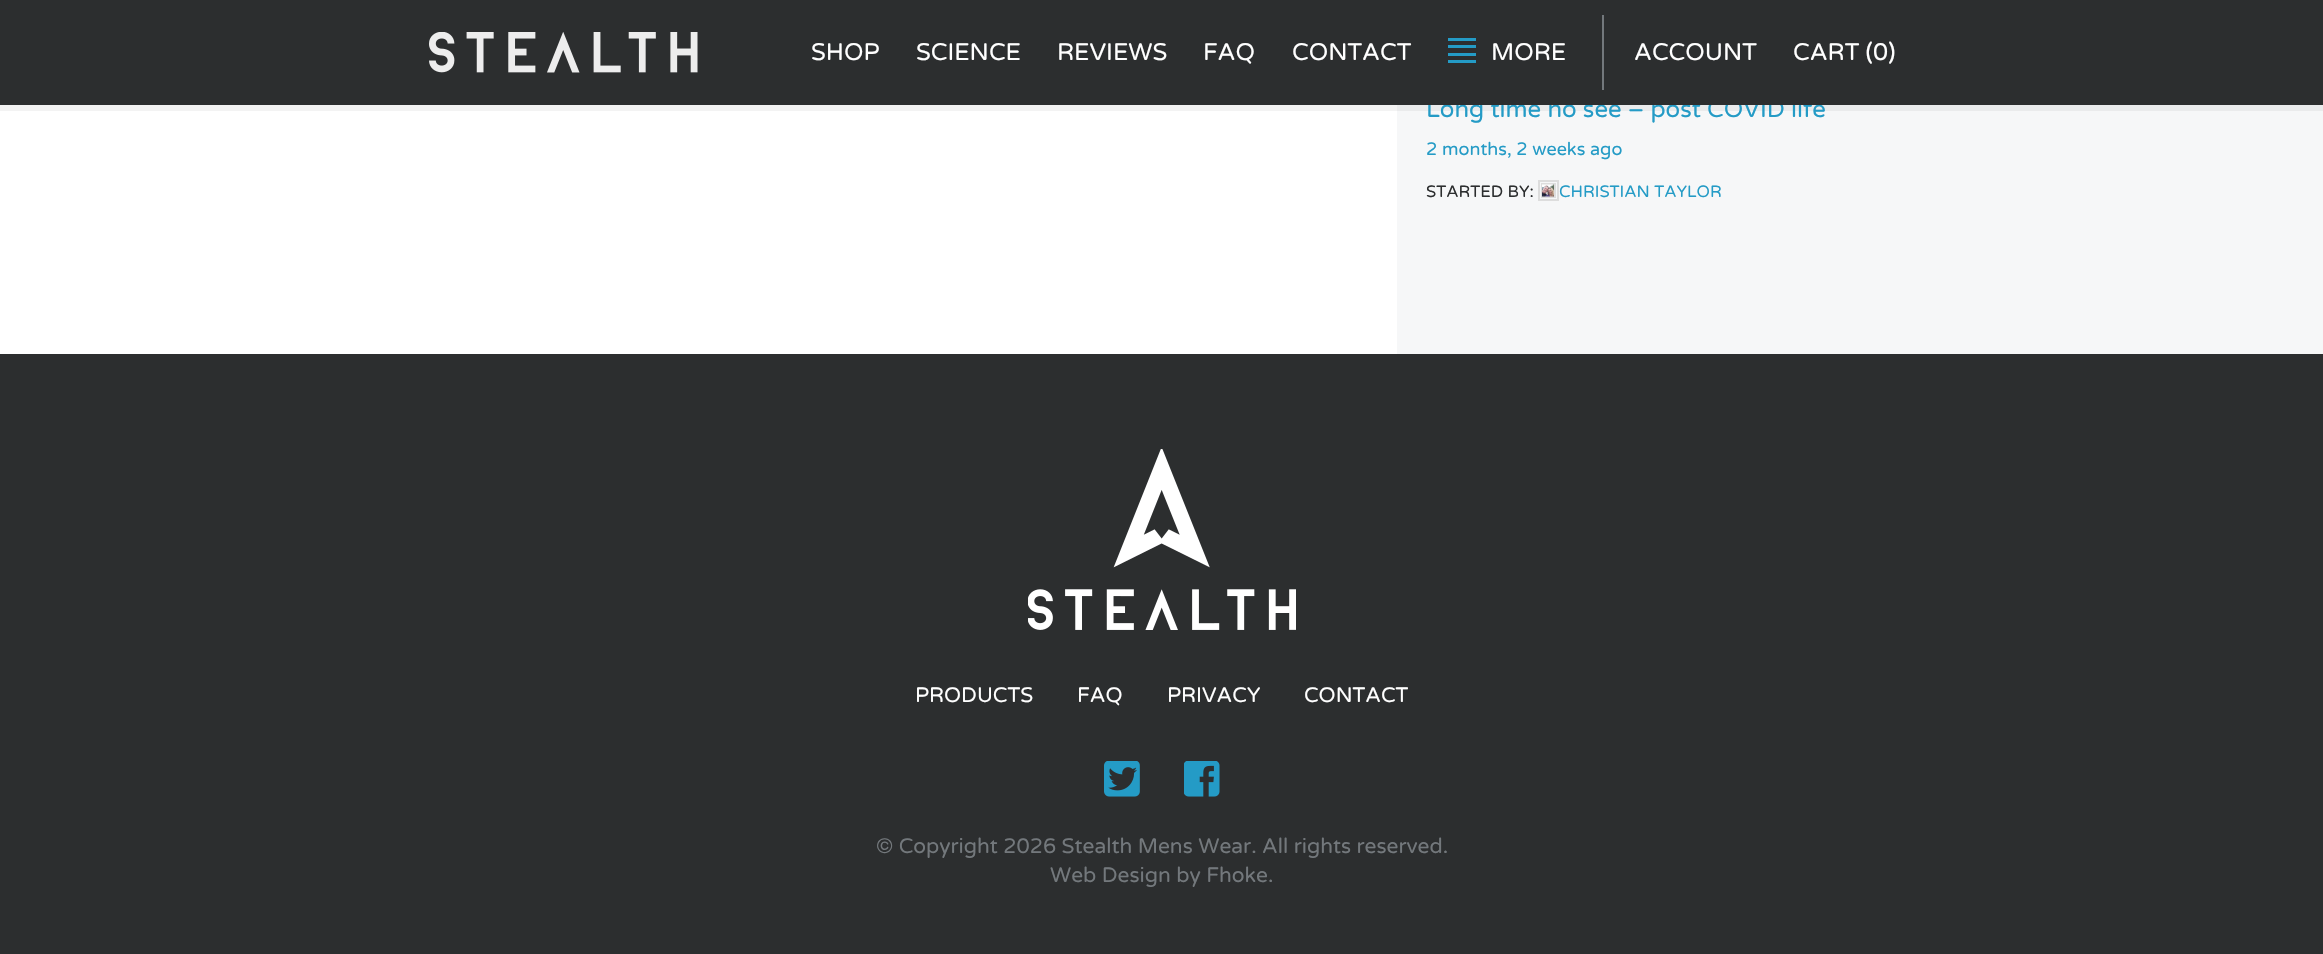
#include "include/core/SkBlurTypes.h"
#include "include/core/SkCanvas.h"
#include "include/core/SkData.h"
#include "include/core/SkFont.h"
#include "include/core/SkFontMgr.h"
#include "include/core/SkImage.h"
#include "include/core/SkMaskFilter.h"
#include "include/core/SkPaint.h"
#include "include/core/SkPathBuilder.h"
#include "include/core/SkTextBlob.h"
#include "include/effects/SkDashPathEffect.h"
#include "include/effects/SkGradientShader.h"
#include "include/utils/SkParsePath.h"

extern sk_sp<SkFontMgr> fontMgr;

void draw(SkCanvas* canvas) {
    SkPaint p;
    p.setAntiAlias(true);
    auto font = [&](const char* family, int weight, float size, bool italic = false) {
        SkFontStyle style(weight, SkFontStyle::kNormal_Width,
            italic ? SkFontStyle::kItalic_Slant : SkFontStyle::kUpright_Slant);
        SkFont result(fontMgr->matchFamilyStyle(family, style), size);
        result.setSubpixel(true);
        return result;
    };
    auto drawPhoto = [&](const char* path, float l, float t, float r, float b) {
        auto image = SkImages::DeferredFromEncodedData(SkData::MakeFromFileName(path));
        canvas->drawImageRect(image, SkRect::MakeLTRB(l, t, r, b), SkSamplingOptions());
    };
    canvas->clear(0xFFFFFFFF);
    {
        const SkColor colors[] = {0xFFFFFFFF, 0xFFFFFFFF, 0xFFF6F7F8, 0xFFF6F7F8};
        const float stops[] = {0.01f, 0.5f, 0.51f, 1};
        const SkPoint ends[] = {{0, -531}, {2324, -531}};
        p.setShader(SkGradientShader::MakeLinear(ends, colors, stops, 4, SkTileMode::kClamp));
        p.setAlpha(255);
    }
    canvas->drawRect(SkRect::MakeLTRB(1168, 105, 2323, 354), p);
    p.setShader(nullptr);
    p.setColor(0xFFFFFFFF);
    canvas->drawRect(SkRect::MakeLTRB(1168, 105, 1397, 354), p);
    p.setColor(0x14626262);
    canvas->drawPath(SkPathBuilder().moveTo(0, 105).lineTo(0, 111).lineTo(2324, 111).lineTo(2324, 6).lineTo(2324, 105).close().detach(), p);
    auto font1 = font("Varela Round", 400, 24);
    p.setColor(0xFF249BC6);
    canvas->drawString("Long time no see – post COVID life", 1426, 117, font1, p);
    p.setColor(0xFF2C2E2F);
    canvas->drawRect(SkRect::MakeLTRB(0, 0, 2323, 105), p);
    drawPhoto("media/1.png", 429, 32, 698, 73);
    p.setColor(0xFFFFFFFF);
    {
        const struct { const char* s; float x, y; } items[] = {
            {"SHOP", 811, 60},
            {"SCIENCE", 916, 60},
            {"REVIEWS", 1057, 60},
            {"FAQ", 1203, 60},
            {"CONTACT", 1292, 60},
        };
        for (auto [s, x, y] : items) {
            canvas->drawString(s, x, y, font1, p);
        }
    }
    p.setColor(0xFF249BC6);
    canvas->drawRect(SkRect::MakeLTRB(1448, 38, 1476, 41), p);
    canvas->drawRect(SkRect::MakeLTRB(1448, 45, 1476, 48), p);
    p.setColor(0xFFFFFFFF);
    canvas->drawString("MORE", 1491, 60, font1, p);
    {
        const struct { float l, t, r, b; SkColor color; } items[] = {
            {1448, 53, 1476, 56, 0xFF249BC6},
            {1448, 60, 1476, 63, 0xFF249BC6},
            {1602, 15, 1604, 90, 0xFF73787C},
        };
        for (auto [l, t, r, b, color] : items) {
            p.setColor(color);
            canvas->drawRect(SkRect::MakeLTRB(l, t, r, b), p);
        }
    }
    p.setColor(0xFFFFFFFF);
    canvas->drawString("ACCOUNT", 1634, 60, font1, p);
    canvas->drawString("CART (0)", 1793, 60, font1, p);
    auto font2 = font("Varela Round", 400, 18);
    p.setColor(0xFF249BC6);
    canvas->drawString("2 months, 2 weeks ago", 1426, 155, font2, p);
    auto font3 = font("Varela Round", 400, 16.5f);
    p.setColor(0xFF2C2E2F);
    canvas->drawString("STARTED BY:", 1426, 197, font3, p);
    p.setStyle(SkPaint::kStroke_Style);
    p.setStrokeWidth(2);
    p.setColor(0xFFDDDDDD);
    canvas->drawRect(SkRect::MakeLTRB(1539, 181, 1558, 200), p);
    canvas->drawRect(SkRect::MakeLTRB(1542, 184, 1555, 197), p);
    drawPhoto("media/2.png", 1542, 184, 1554, 197);
    p.setStyle(SkPaint::kFill_Style);
    p.setColor(0xFF249BC6);
    canvas->drawString("CHRISTIAN TAYLOR", 1559, 197, font3, p);
    p.setColor(0xFF2C2E2F);
    canvas->drawRect(SkRect::MakeLTRB(0, 354, 2323, 954), p);
    drawPhoto("media/3.png", 1028, 449, 1296, 630);
    auto font4 = font("Varela Round", 400, 21);
    p.setColor(0xFFFFFFFF);
    {
        const struct { const char* s; float x, y; } items[] = {
            {"PRODUCTS", 915, 702},
            {"FAQ", 1077, 702},
            {"PRIVACY", 1167, 702},
            {"CONTACT", 1304, 702},
        };
        for (auto [s, x, y] : items) {
            canvas->drawString(s, x, y, font4, p);
        }
    }
    drawPhoto("media/4.png", 1104, 761, 1140, 797);
    drawPhoto("media/5.png", 1184, 761, 1220, 797);
    p.setColor(0xFF73787C);
    canvas->drawString("© Copyright 2026 Stealth Mens Wear. All rights reserved.", 876, 853, font4, p);
    canvas->drawString("Web Design by Fhoke.", 1050, 882, font4, p);
}
